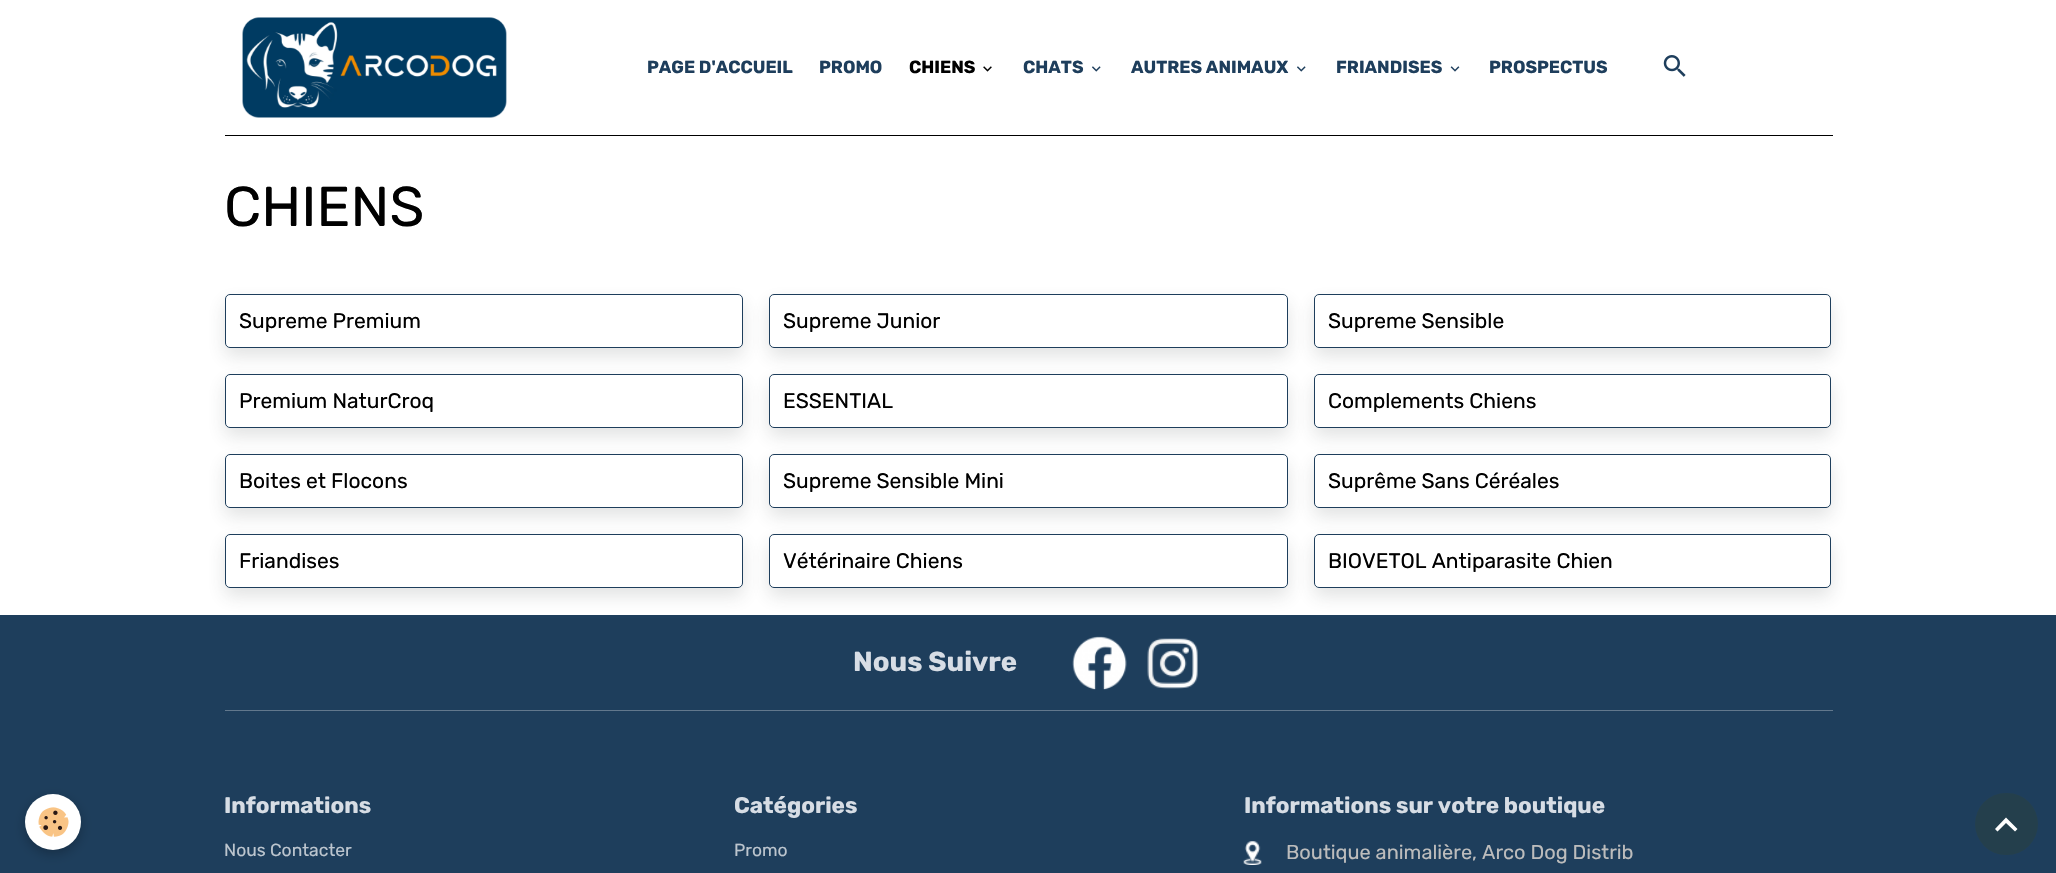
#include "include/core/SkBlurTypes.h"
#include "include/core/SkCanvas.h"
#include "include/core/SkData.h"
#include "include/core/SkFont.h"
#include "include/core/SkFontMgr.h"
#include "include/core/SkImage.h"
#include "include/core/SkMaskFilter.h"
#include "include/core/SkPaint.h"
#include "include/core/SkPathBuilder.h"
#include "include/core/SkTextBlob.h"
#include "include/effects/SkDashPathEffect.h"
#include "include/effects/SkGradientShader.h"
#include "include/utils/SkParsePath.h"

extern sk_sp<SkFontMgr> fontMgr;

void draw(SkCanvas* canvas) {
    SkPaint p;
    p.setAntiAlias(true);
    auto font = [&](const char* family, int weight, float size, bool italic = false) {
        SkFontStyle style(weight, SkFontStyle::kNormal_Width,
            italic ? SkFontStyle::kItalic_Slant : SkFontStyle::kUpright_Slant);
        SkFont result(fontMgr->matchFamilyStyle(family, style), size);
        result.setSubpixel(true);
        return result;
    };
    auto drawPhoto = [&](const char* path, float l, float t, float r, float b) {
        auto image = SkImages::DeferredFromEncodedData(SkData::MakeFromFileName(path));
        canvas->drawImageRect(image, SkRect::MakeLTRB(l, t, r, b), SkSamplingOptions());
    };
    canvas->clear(0xFFFFFFFF);
    p.setColor(0xFF000000);
    canvas->drawRect(SkRect::MakeLTRB(225, 135, 1833, 136), p);
    drawPhoto("media/1.png", 242, 17, 507, 118);
    auto font1 = font("Rubik", 700, 17.5f);
    p.setColor(0xFF1E3E5C);
    canvas->drawString("PAGE D'ACCUEIL", 647, 73, font1, p);
    canvas->drawString("PROMO", 819, 73, font1, p);
    p.setColor(0xFF000000);
    canvas->drawString("CHIENS", 909, 73, font1, p);
    drawPhoto("media/2.png", 983, 66, 992, 72);
    p.setColor(0xFF1E3E5C);
    canvas->drawString("CHATS", 1023, 73, font1, p);
    drawPhoto("media/3.png", 1092, 66, 1101, 72);
    canvas->drawString("AUTRES ANIMAUX", 1131, 73, font1, p);
    drawPhoto("media/3.png", 1297, 66, 1306, 72);
    canvas->drawString("FRIANDISES", 1336, 73, font1, p);
    drawPhoto("media/4.png", 1450, 66, 1460, 72);
    canvas->drawString("PROSPECTUS", 1489, 73, font1, p);
    drawPhoto("media/5.png", 1663, 55, 1686, 77);
    auto font2 = font("Rubik", 400, 56);
    p.setColor(0xFF000000);
    canvas->drawString("CHIENS", 224, 226, font2, p);
    p.setColor(0x26373B3E);
    p.setMaskFilter(SkMaskFilter::MakeBlur(kNormal_SkBlurStyle, 9));
    canvas->drawRoundRect(SkRect::MakeLTRB(225, 303, 743, 356), 5, 5, p);
    p.setMaskFilter(nullptr);
    p.setColor(0xFFFFFFFF);
    canvas->drawRoundRect(SkRect::MakeLTRB(225.5f, 294.5f, 742.5f, 347.5f), 4.5f, 4.5f, p);
    p.setStyle(SkPaint::kStroke_Style);
    p.setStrokeWidth(1);
    p.setColor(0xFF1E3E5C);
    canvas->drawRoundRect(SkRect::MakeLTRB(225.5f, 294.5f, 742.5f, 347.5f), 4.5f, 4.5f, p);
    auto font3 = font("Rubik", 400, 21);
    p.setStyle(SkPaint::kFill_Style);
    p.setColor(0xFF000000);
    canvas->drawString("Supreme Premium", 239, 328, font3, p);
    p.setColor(0x26373B3E);
    p.setMaskFilter(SkMaskFilter::MakeBlur(kNormal_SkBlurStyle, 9));
    canvas->drawRoundRect(SkRect::MakeLTRB(769, 303, 1288, 356), 5, 5, p);
    p.setMaskFilter(nullptr);
    p.setColor(0xFFFFFFFF);
    canvas->drawRoundRect(SkRect::MakeLTRB(769.5f, 294.5f, 1287.5f, 347.5f), 4.5f, 4.5f, p);
    p.setStyle(SkPaint::kStroke_Style);
    p.setColor(0xFF1E3E5C);
    canvas->drawRoundRect(SkRect::MakeLTRB(769.5f, 294.5f, 1287.5f, 347.5f), 4.5f, 4.5f, p);
    p.setStyle(SkPaint::kFill_Style);
    p.setColor(0xFF000000);
    canvas->drawString("Supreme Junior", 783, 328, font3, p);
    p.setColor(0x26373B3E);
    p.setMaskFilter(SkMaskFilter::MakeBlur(kNormal_SkBlurStyle, 9));
    canvas->drawRoundRect(SkRect::MakeLTRB(1314, 303, 1831, 356), 5, 5, p);
    p.setMaskFilter(nullptr);
    p.setColor(0xFFFFFFFF);
    canvas->drawRoundRect(SkRect::MakeLTRB(1314.5f, 294.5f, 1830.5f, 347.5f), 4.5f, 4.5f, p);
    p.setStyle(SkPaint::kStroke_Style);
    p.setColor(0xFF1E3E5C);
    canvas->drawRoundRect(SkRect::MakeLTRB(1314.5f, 294.5f, 1830.5f, 347.5f), 4.5f, 4.5f, p);
    p.setStyle(SkPaint::kFill_Style);
    p.setColor(0xFF000000);
    canvas->drawString("Supreme Sensible", 1328, 328, font3, p);
    p.setColor(0x26373B3E);
    p.setMaskFilter(SkMaskFilter::MakeBlur(kNormal_SkBlurStyle, 9));
    canvas->drawRoundRect(SkRect::MakeLTRB(225, 383, 743, 436), 5, 5, p);
    p.setMaskFilter(nullptr);
    p.setColor(0xFFFFFFFF);
    canvas->drawRoundRect(SkRect::MakeLTRB(225.5f, 374.5f, 742.5f, 427.5f), 4.5f, 4.5f, p);
    p.setStyle(SkPaint::kStroke_Style);
    p.setColor(0xFF1E3E5C);
    canvas->drawRoundRect(SkRect::MakeLTRB(225.5f, 374.5f, 742.5f, 427.5f), 4.5f, 4.5f, p);
    p.setStyle(SkPaint::kFill_Style);
    p.setColor(0xFF000000);
    canvas->drawString("Premium NaturCroq", 239, 408, font3, p);
    p.setColor(0x26373B3E);
    p.setMaskFilter(SkMaskFilter::MakeBlur(kNormal_SkBlurStyle, 9));
    canvas->drawRoundRect(SkRect::MakeLTRB(769, 383, 1288, 436), 5, 5, p);
    p.setMaskFilter(nullptr);
    p.setColor(0xFFFFFFFF);
    canvas->drawRoundRect(SkRect::MakeLTRB(769.5f, 374.5f, 1287.5f, 427.5f), 4.5f, 4.5f, p);
    p.setStyle(SkPaint::kStroke_Style);
    p.setColor(0xFF1E3E5C);
    canvas->drawRoundRect(SkRect::MakeLTRB(769.5f, 374.5f, 1287.5f, 427.5f), 4.5f, 4.5f, p);
    p.setStyle(SkPaint::kFill_Style);
    p.setColor(0xFF000000);
    canvas->drawString("ESSENTIAL", 783, 408, font3, p);
    p.setColor(0x26373B3E);
    p.setMaskFilter(SkMaskFilter::MakeBlur(kNormal_SkBlurStyle, 9));
    canvas->drawRoundRect(SkRect::MakeLTRB(1314, 383, 1831, 436), 5, 5, p);
    p.setMaskFilter(nullptr);
    p.setColor(0xFFFFFFFF);
    canvas->drawRoundRect(SkRect::MakeLTRB(1314.5f, 374.5f, 1830.5f, 427.5f), 4.5f, 4.5f, p);
    p.setStyle(SkPaint::kStroke_Style);
    p.setColor(0xFF1E3E5C);
    canvas->drawRoundRect(SkRect::MakeLTRB(1314.5f, 374.5f, 1830.5f, 427.5f), 4.5f, 4.5f, p);
    p.setStyle(SkPaint::kFill_Style);
    p.setColor(0xFF000000);
    canvas->drawString("Complements Chiens", 1328, 408, font3, p);
    p.setColor(0x26373B3E);
    p.setMaskFilter(SkMaskFilter::MakeBlur(kNormal_SkBlurStyle, 9));
    canvas->drawRoundRect(SkRect::MakeLTRB(225, 463, 743, 516), 5, 5, p);
    p.setMaskFilter(nullptr);
    p.setColor(0xFFFFFFFF);
    canvas->drawRoundRect(SkRect::MakeLTRB(225.5f, 454.5f, 742.5f, 507.5f), 4.5f, 4.5f, p);
    p.setStyle(SkPaint::kStroke_Style);
    p.setColor(0xFF1E3E5C);
    canvas->drawRoundRect(SkRect::MakeLTRB(225.5f, 454.5f, 742.5f, 507.5f), 4.5f, 4.5f, p);
    p.setStyle(SkPaint::kFill_Style);
    p.setColor(0xFF000000);
    canvas->drawString("Boites et Flocons", 239, 488, font3, p);
    p.setColor(0x26373B3E);
    p.setMaskFilter(SkMaskFilter::MakeBlur(kNormal_SkBlurStyle, 9));
    canvas->drawRoundRect(SkRect::MakeLTRB(769, 463, 1288, 516), 5, 5, p);
    p.setMaskFilter(nullptr);
    p.setColor(0xFFFFFFFF);
    canvas->drawRoundRect(SkRect::MakeLTRB(769.5f, 454.5f, 1287.5f, 507.5f), 4.5f, 4.5f, p);
    p.setStyle(SkPaint::kStroke_Style);
    p.setColor(0xFF1E3E5C);
    canvas->drawRoundRect(SkRect::MakeLTRB(769.5f, 454.5f, 1287.5f, 507.5f), 4.5f, 4.5f, p);
    p.setStyle(SkPaint::kFill_Style);
    p.setColor(0xFF000000);
    canvas->drawString("Supreme Sensible Mini", 783, 488, font3, p);
    p.setColor(0x26373B3E);
    p.setMaskFilter(SkMaskFilter::MakeBlur(kNormal_SkBlurStyle, 9));
    canvas->drawRoundRect(SkRect::MakeLTRB(1314, 463, 1831, 516), 5, 5, p);
    p.setMaskFilter(nullptr);
    p.setColor(0xFFFFFFFF);
    canvas->drawRoundRect(SkRect::MakeLTRB(1314.5f, 454.5f, 1830.5f, 507.5f), 4.5f, 4.5f, p);
    p.setStyle(SkPaint::kStroke_Style);
    p.setColor(0xFF1E3E5C);
    canvas->drawRoundRect(SkRect::MakeLTRB(1314.5f, 454.5f, 1830.5f, 507.5f), 4.5f, 4.5f, p);
    p.setStyle(SkPaint::kFill_Style);
    p.setColor(0xFF000000);
    canvas->drawString("Suprême Sans Céréales", 1328, 488, font3, p);
    p.setColor(0xFF1E3E5C);
    canvas->drawRect(SkRect::MakeLTRB(0, 615, 2056, 873), p);
    p.setColor(0x26373B3E);
    p.setMaskFilter(SkMaskFilter::MakeBlur(kNormal_SkBlurStyle, 9));
    canvas->drawRoundRect(SkRect::MakeLTRB(225, 543, 743, 596), 5, 5, p);
    p.setMaskFilter(nullptr);
    p.setColor(0xFFFFFFFF);
    canvas->drawRoundRect(SkRect::MakeLTRB(225.5f, 534.5f, 742.5f, 587.5f), 4.5f, 4.5f, p);
    p.setStyle(SkPaint::kStroke_Style);
    p.setColor(0xFF1E3E5C);
    canvas->drawRoundRect(SkRect::MakeLTRB(225.5f, 534.5f, 742.5f, 587.5f), 4.5f, 4.5f, p);
    p.setStyle(SkPaint::kFill_Style);
    p.setColor(0xFF000000);
    canvas->drawString("Friandises", 239, 568, font3, p);
    p.setColor(0x26373B3E);
    p.setMaskFilter(SkMaskFilter::MakeBlur(kNormal_SkBlurStyle, 9));
    canvas->drawRoundRect(SkRect::MakeLTRB(769, 543, 1288, 596), 5, 5, p);
    p.setMaskFilter(nullptr);
    p.setColor(0xFFFFFFFF);
    canvas->drawRoundRect(SkRect::MakeLTRB(769.5f, 534.5f, 1287.5f, 587.5f), 4.5f, 4.5f, p);
    p.setStyle(SkPaint::kStroke_Style);
    p.setColor(0xFF1E3E5C);
    canvas->drawRoundRect(SkRect::MakeLTRB(769.5f, 534.5f, 1287.5f, 587.5f), 4.5f, 4.5f, p);
    p.setStyle(SkPaint::kFill_Style);
    p.setColor(0xFF000000);
    canvas->drawString("Vétérinaire Chiens", 783, 568, font3, p);
    p.setColor(0x26373B3E);
    p.setMaskFilter(SkMaskFilter::MakeBlur(kNormal_SkBlurStyle, 9));
    canvas->drawRoundRect(SkRect::MakeLTRB(1314, 543, 1831, 596), 5, 5, p);
    p.setMaskFilter(nullptr);
    p.setColor(0xFFFFFFFF);
    canvas->drawRoundRect(SkRect::MakeLTRB(1314.5f, 534.5f, 1830.5f, 587.5f), 4.5f, 4.5f, p);
    p.setStyle(SkPaint::kStroke_Style);
    p.setColor(0xFF1E3E5C);
    canvas->drawRoundRect(SkRect::MakeLTRB(1314.5f, 534.5f, 1830.5f, 587.5f), 4.5f, 4.5f, p);
    p.setStyle(SkPaint::kFill_Style);
    p.setColor(0xFF000000);
    canvas->drawString("BIOVETOL Antiparasite Chien", 1328, 568, font3, p);
    p.setColor(0x3D000000);
    p.setMaskFilter(SkMaskFilter::MakeBlur(kNormal_SkBlurStyle, 6));
    canvas->drawRoundRect(SkRect::MakeLTRB(25, 798, 81, 854), 28, 28, p);
    p.setMaskFilter(nullptr);
    p.setColor(0xFFFFFFFF);
    canvas->drawCircle(53, 822, 28, p);
    drawPhoto("media/6.png", 38, 807, 69, 837);
    auto font4 = font("Rubik", 700, 27.5f);
    p.setColor(0xFFD7DDE5);
    canvas->drawString("Nous Suivre", 853, 671, font4, p);
    drawPhoto("media/7.png", 1072, 636, 1127, 690);
    drawPhoto("media/8.png", 1147, 638, 1198, 689);
    p.setColor(0xFF62788D);
    canvas->drawRect(SkRect::MakeLTRB(225, 710, 1833, 711), p);
    auto font5 = font("Rubik", 700, 22.5f);
    p.setColor(0xFFD7DDE5);
    canvas->drawString("Informations", 224, 813, font5, p);
    auto font6 = font("Rubik", 400, 17.5f);
    p.setColor(0xFFBCC5CE);
    canvas->drawString("Nous Contacter", 224, 856, font6, p);
    p.setColor(0xFFD7DDE5);
    canvas->drawString("Catégories", 734, 813, font5, p);
    p.setColor(0xFFBCC5CE);
    canvas->drawString("Promo", 734, 856, font6, p);
    p.setColor(0xFFD7DDE5);
    canvas->drawString("Informations sur votre boutique", 1244, 813, font5, p);
    drawPhoto("media/9.png", 1243, 841, 1262, 865);
    auto font7 = font("Rubik", 400, 20);
    p.setColor(0xFFBCBCBC);
    canvas->drawString("Boutique animalière, Arco Dog Distrib", 1286, 859, font7, p);
    p.setColor(0xFF243F4C);
    canvas->drawRoundRect(SkRect::MakeLTRB(1975, 793, 2038, 855), 31, 31, p);
    p.setColor(0xFFFFFFFF);
    canvas->drawPath(SkPathBuilder().moveTo(2006, 817.5f).lineTo(2017.5f, 829).lineTo(2015, 831.5f).lineTo(2006, 823).lineTo(1997.5f, 831.5f).lineTo(1995, 829).close().detach(), p);
}
